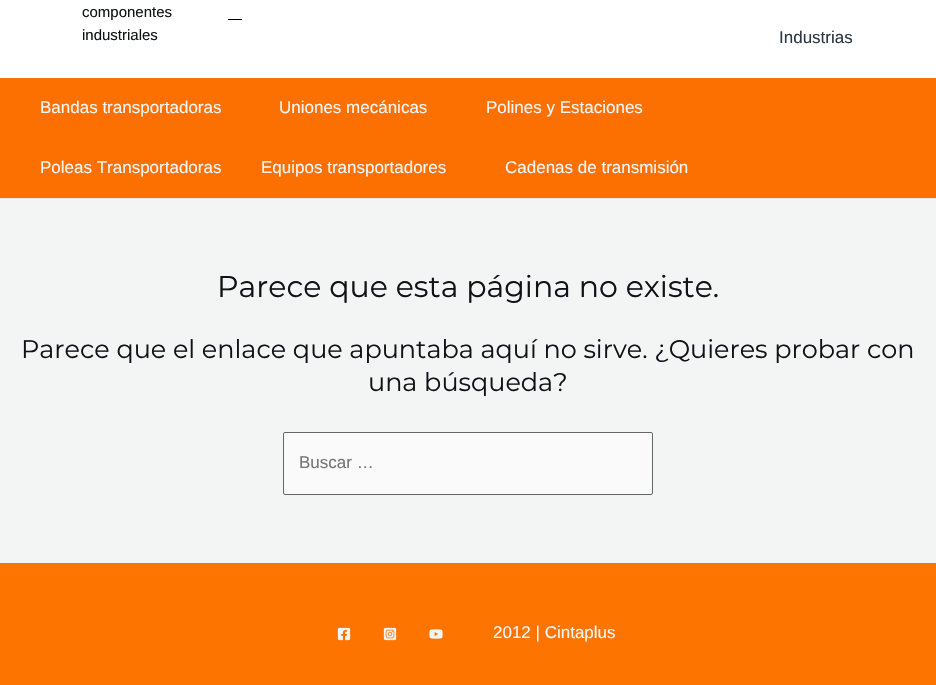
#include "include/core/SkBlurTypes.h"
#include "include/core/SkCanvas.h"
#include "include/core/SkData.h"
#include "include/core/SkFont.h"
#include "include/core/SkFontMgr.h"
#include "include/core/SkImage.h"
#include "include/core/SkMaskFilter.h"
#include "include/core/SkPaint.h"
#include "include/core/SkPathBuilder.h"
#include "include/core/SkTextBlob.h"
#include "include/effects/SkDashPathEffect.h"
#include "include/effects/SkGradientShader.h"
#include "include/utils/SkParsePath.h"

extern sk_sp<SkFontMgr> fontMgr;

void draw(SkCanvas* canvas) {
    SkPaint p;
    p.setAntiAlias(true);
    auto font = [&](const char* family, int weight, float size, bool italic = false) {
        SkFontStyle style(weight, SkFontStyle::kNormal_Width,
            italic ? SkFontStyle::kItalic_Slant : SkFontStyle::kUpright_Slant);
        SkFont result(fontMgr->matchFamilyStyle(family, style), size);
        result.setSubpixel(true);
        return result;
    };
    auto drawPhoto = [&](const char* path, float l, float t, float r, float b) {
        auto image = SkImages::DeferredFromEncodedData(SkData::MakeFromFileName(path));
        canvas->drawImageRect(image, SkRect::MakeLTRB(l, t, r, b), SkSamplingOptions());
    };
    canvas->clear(0xFFF3F5F5);
    p.setColor(0xFFFFFFFF);
    canvas->drawRect(SkRect::MakeLTRB(0, 0, 936, 78), p);
    auto font1 = font("Liberation Sans", 400, 15);
    p.setColor(0xFF101218);
    canvas->drawString("componentes", 82, 17, font1, p);
    canvas->drawString("industriales", 82, 40, font1, p);
    p.setColor(0xFF000000);
    canvas->drawRect(SkRect::MakeLTRB(228, 19, 242, 20), p);
    auto font2 = font("Liberation Sans", 400, 17);
    p.setColor(0xFF2D3645);
    canvas->drawString("Industrias", 779, 43, font2, p);
    p.setColor(0xFFFC7001);
    canvas->drawRect(SkRect::MakeLTRB(0, 78, 936, 198), p);
    p.setColor(0xFFEAEAEA);
    canvas->drawRect(SkRect::MakeLTRB(0, 198, 936, 199), p);
    p.setColor(0xFFF3F5F5);
    {
        const struct { const char* s; float x, y; } items[] = {
            {"Bandas transportadoras", 40, 113},
            {"Uniones mecánicas", 279, 113},
            {"Polines y Estaciones", 486, 113},
            {"Poleas Transportadoras", 40, 173},
            {"Equipos transportadores", 261, 173},
            {"Cadenas de transmisión", 505, 173},
        };
        for (auto [s, x, y] : items) {
            canvas->drawString(s, x, y, font2, p);
        }
    }
    auto font3 = font("Montserrat", 400, 30);
    p.setColor(0xFF101218);
    canvas->drawString("Parece que esta página no existe.", 217, 297, font3, p);
    auto font4 = font("Montserrat", 400, 25.5f);
    canvas->drawString("Parece que el enlace que apuntaba aquí no sirve. ¿Quieres probar con", 21, 358, font4, p);
    canvas->drawString("una búsqueda?", 368, 391, font4, p);
    p.setColor(0xFFFAFAFA);
    canvas->drawRoundRect(SkRect::MakeLTRB(283.5f, 432.5f, 652.5f, 494.5f), 1.5f, 1.5f, p);
    p.setStyle(SkPaint::kStroke_Style);
    p.setStrokeWidth(1);
    p.setColor(0xFF666666);
    canvas->drawRoundRect(SkRect::MakeLTRB(283.5f, 432.5f, 652.5f, 494.5f), 1.5f, 1.5f, p);
    p.setStyle(SkPaint::kFill_Style);
    p.setColor(0xFF757575);
    canvas->drawString("Buscar …", 299, 468, font2, p);
    p.setColor(0xFFFD7400);
    canvas->drawRect(SkRect::MakeLTRB(0, 563, 936, 685), p);
    drawPhoto("media/1.png", 337, 627, 351, 641);
    drawPhoto("media/2.png", 383, 627, 397, 641);
    drawPhoto("media/3.png", 429, 629, 443, 639);
    p.setColor(0xFFF3F5F5);
    canvas->drawString("2012 | Cintaplus", 493, 638, font2, p);
}
